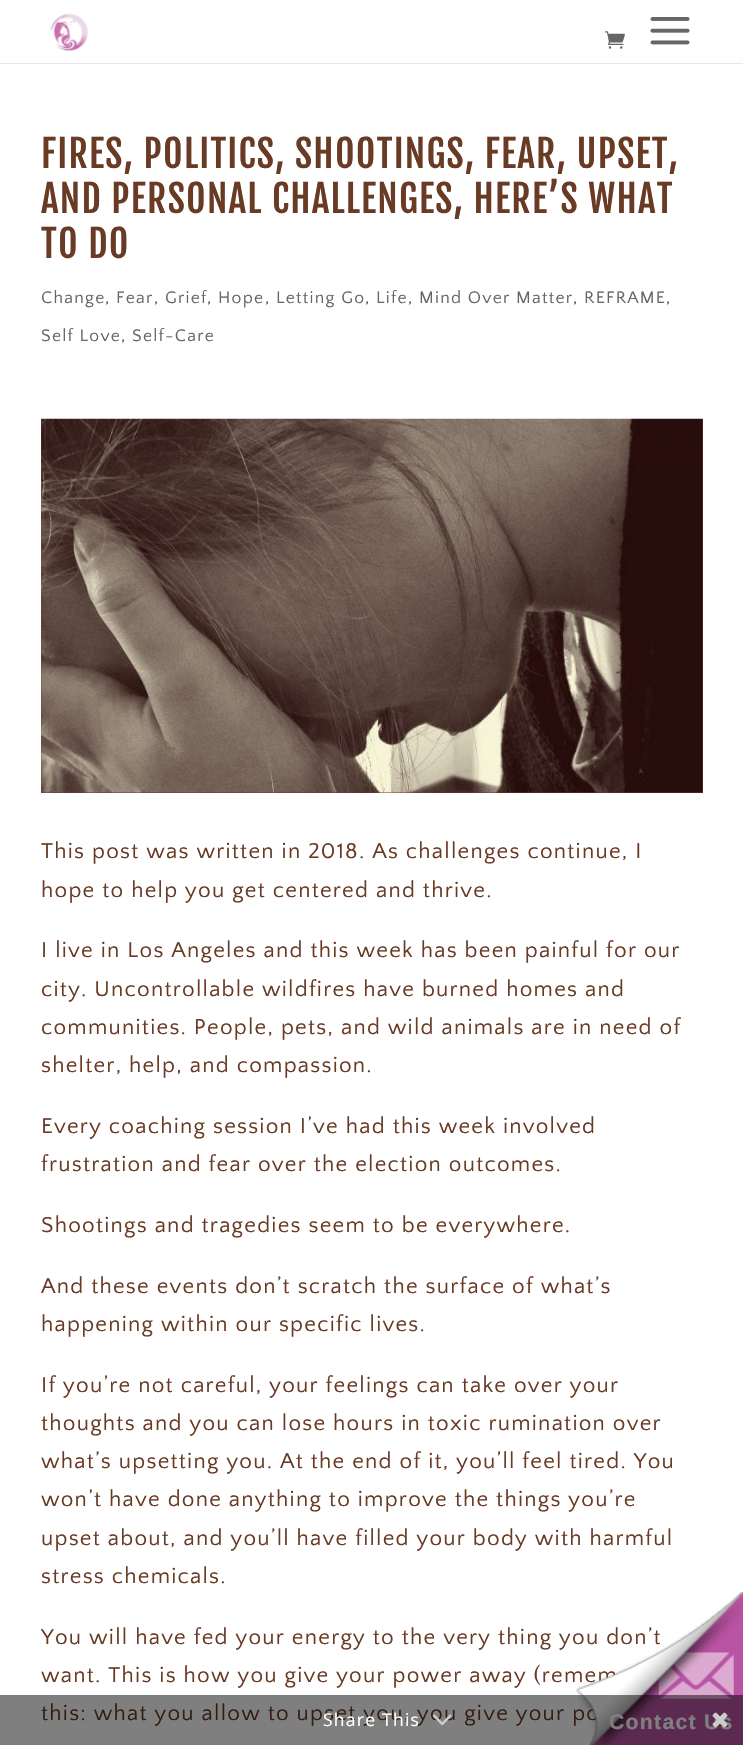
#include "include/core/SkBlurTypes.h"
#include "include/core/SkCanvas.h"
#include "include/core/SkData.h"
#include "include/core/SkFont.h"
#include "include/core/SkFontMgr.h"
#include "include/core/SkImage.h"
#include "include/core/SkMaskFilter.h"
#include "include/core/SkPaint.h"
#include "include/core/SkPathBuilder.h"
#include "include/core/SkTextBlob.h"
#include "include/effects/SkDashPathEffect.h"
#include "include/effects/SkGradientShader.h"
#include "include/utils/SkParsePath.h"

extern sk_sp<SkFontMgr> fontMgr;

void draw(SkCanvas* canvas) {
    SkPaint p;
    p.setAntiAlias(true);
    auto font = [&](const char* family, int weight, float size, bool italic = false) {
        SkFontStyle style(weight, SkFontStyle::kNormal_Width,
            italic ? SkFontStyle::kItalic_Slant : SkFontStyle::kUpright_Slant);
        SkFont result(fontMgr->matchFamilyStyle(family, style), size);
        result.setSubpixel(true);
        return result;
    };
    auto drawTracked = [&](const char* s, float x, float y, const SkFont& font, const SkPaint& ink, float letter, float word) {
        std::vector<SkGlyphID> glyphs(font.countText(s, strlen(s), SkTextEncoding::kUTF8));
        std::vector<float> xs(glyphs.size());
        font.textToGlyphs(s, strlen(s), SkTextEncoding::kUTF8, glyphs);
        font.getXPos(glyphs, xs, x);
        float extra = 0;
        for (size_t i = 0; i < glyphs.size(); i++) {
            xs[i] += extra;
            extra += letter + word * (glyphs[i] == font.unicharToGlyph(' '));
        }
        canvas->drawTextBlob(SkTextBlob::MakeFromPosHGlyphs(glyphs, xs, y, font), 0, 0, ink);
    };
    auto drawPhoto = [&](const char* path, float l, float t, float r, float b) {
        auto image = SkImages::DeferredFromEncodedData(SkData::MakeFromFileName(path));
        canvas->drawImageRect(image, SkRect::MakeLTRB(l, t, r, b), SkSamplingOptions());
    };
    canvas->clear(0xFFFFFFFF);
    p.setColor(0xFFE6E6E6);
    canvas->drawPath(SkPathBuilder().moveTo(0, 62).lineTo(0, 64).lineTo(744, 64).lineTo(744, 1).lineTo(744, 62).close().detach(), p);
    p.setColor(0xFFFFFFFF);
    canvas->drawRect(SkRect::MakeLTRB(0, 62, 743, 63), p);
    drawPhoto("media/1.png", 49, 13, 89, 51);
    drawPhoto("media/2.png", 605, 31, 625, 49);
    drawPhoto("media/3.png", 650, 17, 690, 45);
    auto font1 = font("Fjalla One", 400, 37.5f);
    p.setColor(0xFF693A24);
    {
        const struct { const char* s; float x, y; } items[] = {
            {"FIRES, POLITICS, SHOOTINGS, FEAR, UPSET,", 41, 168},
            {"AND PERSONAL CHALLENGES, HERE’S WHAT", 41, 213},
            {"TO DO", 41, 258},
        };
        for (auto [s, x, y] : items) {
            drawTracked(s, x, y, font1, p, 1.25f, 0);
        }
    }
    auto font2 = font("Quattrocento Sans", 400, 17.5f);
    p.setColor(0xFF666666);
    drawTracked("Change", 41, 303, font2, p, 1.25f, 0);
    p.setColor(0xFF693A24);
    drawTracked(",", 105, 303, font2, p, 1.25f, 0);
    p.setColor(0xFF666666);
    drawTracked("Fear", 116, 303, font2, p, 1.25f, 0);
    p.setColor(0xFF693A24);
    drawTracked(",", 154, 303, font2, p, 1.25f, 0);
    p.setColor(0xFF666666);
    drawTracked("Grief", 165, 303, font2, p, 1.25f, 0);
    p.setColor(0xFF693A24);
    drawTracked(",", 207, 303, font2, p, 1.25f, 0);
    p.setColor(0xFF666666);
    drawTracked("Hope", 218, 303, font2, p, 1.25f, 0);
    p.setColor(0xFF693A24);
    drawTracked(",", 265, 303, font2, p, 1.25f, 0);
    p.setColor(0xFF666666);
    drawTracked("Letting Go", 276, 303, font2, p, 1.25f, 0);
    p.setColor(0xFF693A24);
    drawTracked(",", 365, 303, font2, p, 1.25f, 0);
    p.setColor(0xFF666666);
    drawTracked("Life", 376, 303, font2, p, 1.25f, 0);
    p.setColor(0xFF693A24);
    drawTracked(",", 408, 303, font2, p, 1.25f, 0);
    p.setColor(0xFF666666);
    drawTracked("Mind Over Matter", 419, 303, font2, p, 1.25f, 0);
    p.setColor(0xFF693A24);
    drawTracked(",", 573, 303, font2, p, 1.25f, 0);
    p.setColor(0xFF666666);
    drawTracked("REFRAME", 584, 303, font2, p, 1.25f, 0);
    p.setColor(0xFF693A24);
    drawTracked(",", 666, 303, font2, p, 1.25f, 0);
    p.setColor(0xFF666666);
    drawTracked("Self Love", 41, 341, font2, p, 1.25f, 0);
    p.setColor(0xFF693A24);
    drawTracked(",", 121, 341, font2, p, 1.25f, 0);
    p.setColor(0xFF666666);
    drawTracked("Self-Care", 132, 341, font2, p, 1.25f, 0);
    p.setColor(0xFF693A24);
    canvas->drawRect(SkRect::MakeLTRB(41, 419, 703, 793), p);
    drawPhoto("media/4.png", 41, 418, 703, 793);
    auto font3 = font("Quattrocento Sans", 400, 22.5f);
    {
        const struct { const char* s; float x, y; } items[] = {
            {"This post was written in 2018. As challenges continue, I", 41, 858},
            {"hope to help you get centered and thrive.", 41, 897},
            {"I live in Los Angeles and this week has been painful for our", 41, 957},
            {"city. Uncontrollable wildfires have burned homes and", 41, 996},
            {"communities. People, pets, and wild animals are in need of", 41, 1034},
            {"shelter, help, and compassion.", 41, 1072},
            {"Every coaching session I’ve had this week involved", 41, 1133},
            {"frustration and fear over the election outcomes.", 41, 1171},
            {"Shootings and tragedies seem to be everywhere.", 41, 1232},
            {"And these events don’t scratch the surface of what’s", 41, 1293},
            {"happening within our specific lives.", 41, 1331},
            {"If you’re not careful, your feelings can take over your", 41, 1392},
            {"thoughts and you can lose hours in toxic rumination over", 41, 1430},
            {"what’s upsetting you. At the end of it, you’ll feel tired. You", 41, 1468},
            {"won’t have done anything to improve the things you’re", 41, 1506},
            {"upset about, and you’ll have filled your body with harmful", 41, 1545},
            {"stress chemicals.", 41, 1583},
            {"You will have fed your energy to the very thing you don’t", 41, 1644},
            {"want. This is how you give your power away (remem", 41, 1682},
            {"this: what you allow to upset you, you give your po", 41, 1720},
        };
        for (auto [s, x, y] : items) {
            drawTracked(s, x, y, font3, p, 1.25f, 0);
        }
    }
    p.setColor(0xFFB953A3);
    canvas->drawPath(SkPathBuilder().moveTo(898, 1745).lineTo(590, 1745).lineTo(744, 1591).close().detach(), p);
    drawPhoto("media/7.png", 658, 1652, 734, 1699);
    drawPhoto("media/8.png", 576, 1591, 743, 1745);
    auto font4 = font("Liberation Sans", 700, 21.25f);
    p.setColor(0xFFFFFFFF);
    drawTracked("Contact Us", 609, 1729, font4, p, 1.25f, 0);
    p.setColor(0x80000000);
    canvas->drawRect(SkRect::MakeLTRB(0, 1695, 743, 1745), p);
    auto font5 = font("Open Sans", 400, 17.5f);
    p.setColor(0xFFFFFFFF);
    drawTracked("Share This", 323, 1726, font5, p, 1.25f, 0);
    drawPhoto("media/5.png", 432, 1714, 452, 1726);
    drawPhoto("media/6.png", 712, 1712, 728, 1728);
}
